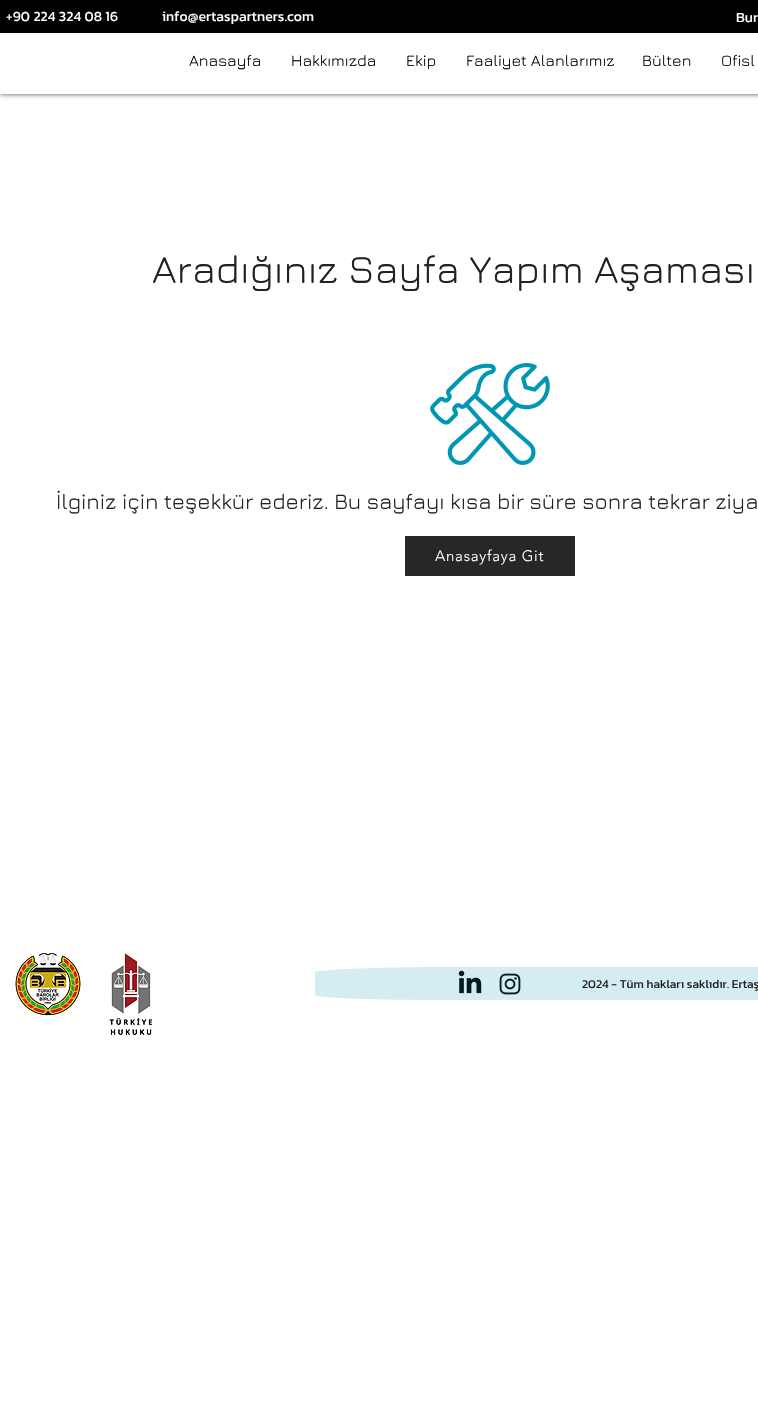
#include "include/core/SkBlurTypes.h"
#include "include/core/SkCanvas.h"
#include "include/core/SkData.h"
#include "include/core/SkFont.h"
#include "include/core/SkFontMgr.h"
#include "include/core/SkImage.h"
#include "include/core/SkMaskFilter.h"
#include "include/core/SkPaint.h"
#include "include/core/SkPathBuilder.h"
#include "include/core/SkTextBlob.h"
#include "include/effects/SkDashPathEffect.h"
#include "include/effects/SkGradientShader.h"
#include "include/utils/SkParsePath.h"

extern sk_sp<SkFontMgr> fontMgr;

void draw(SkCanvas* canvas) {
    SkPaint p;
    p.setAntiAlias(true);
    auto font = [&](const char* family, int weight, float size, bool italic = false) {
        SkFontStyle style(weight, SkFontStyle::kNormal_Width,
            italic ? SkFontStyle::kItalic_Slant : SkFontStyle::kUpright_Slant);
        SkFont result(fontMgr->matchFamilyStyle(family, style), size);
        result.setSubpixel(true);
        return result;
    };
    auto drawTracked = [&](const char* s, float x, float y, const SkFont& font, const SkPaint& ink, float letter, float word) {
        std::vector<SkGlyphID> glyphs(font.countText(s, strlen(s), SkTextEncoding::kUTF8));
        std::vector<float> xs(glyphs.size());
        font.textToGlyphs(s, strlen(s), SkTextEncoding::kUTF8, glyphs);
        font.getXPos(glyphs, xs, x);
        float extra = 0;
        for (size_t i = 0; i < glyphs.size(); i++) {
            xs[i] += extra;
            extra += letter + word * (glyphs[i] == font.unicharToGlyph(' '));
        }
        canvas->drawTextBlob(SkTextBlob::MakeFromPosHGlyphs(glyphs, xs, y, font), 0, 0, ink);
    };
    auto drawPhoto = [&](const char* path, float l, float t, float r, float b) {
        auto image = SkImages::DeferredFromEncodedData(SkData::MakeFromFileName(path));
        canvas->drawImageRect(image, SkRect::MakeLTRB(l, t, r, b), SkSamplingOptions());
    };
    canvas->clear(0xFFFFFFFF);
    p.setColor(0xB3000000);
    p.setMaskFilter(SkMaskFilter::MakeBlur(kNormal_SkBlurStyle, 2.5f));
    canvas->drawRect(SkRect::MakeLTRB(0, 0, 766, 94), p);
    p.setMaskFilter(nullptr);
    p.setColor(0xFFFFFFFF);
    canvas->drawRect(SkRect::MakeLTRB(0, 33, 758, 94), p);
    p.setColor(0xFF000000);
    canvas->drawPath(SkPathBuilder().moveTo(-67, 33).cubicTo(-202, 33, -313, 31, -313, 28).lineTo(-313, 5).cubicTo(-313, 2, -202, 0, -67, 0).lineTo(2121, 0).lineTo(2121, 33).close().detach(), p);
    auto font1 = font("Kanit", 400, 14);
    p.setColor(0xFFFFFFFF);
    drawTracked("+90 224 324 08 16", 6, 21, font1, p, 0.1f, 0);
    drawTracked("info@ertaspartners.com", 162, 21, font1, p, 0.1f, 0);
    canvas->drawString("Bur", 736, 22, font1, p);
    auto font2 = font("Jura", 400, 16);
    p.setColor(0xFF000000);
    {
        const struct { const char* s; float x, y; } items[] = {
            {"Anasayfa", 189, 66},
            {"Hakkımızda", 291, 66},
            {"Ekip", 406, 66},
            {"Faaliyet Alanlarımız", 466, 66},
            {"Bülten", 642, 66},
            {"Ofisl", 721, 66},
        };
        for (auto [s, x, y] : items) {
            canvas->drawString(s, x, y, font2, p);
        }
    }
    auto font3 = font("Jura", 400, 40);
    p.setColor(0xFF222222);
    canvas->drawString("Aradığınız Sayfa Yapım Aşaması", 152, 283, font3, p);
    drawPhoto("media/1.png", 430, 363, 550, 465);
    auto font4 = font("Jura", 400, 22);
    canvas->drawString("İlginiz için teşekkür ederiz. Bu sayfayı kısa bir süre sonra tekrar ziya", 56, 509, font4, p);
    p.setColor(0xFF282626);
    canvas->drawRect(SkRect::MakeLTRB(405, 536, 575, 576), p);
    auto font5 = font("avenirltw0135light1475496", 300, 15);
    p.setColor(0xFFFFFFFF);
    drawTracked("Anasayfaya Git", 435, 561, font5, p, 0.75f, 0);
    drawPhoto("media/2.png", 15, 951, 81, 1017);
    drawPhoto("media/3.png", 109, 953, 152, 1035);
    drawPhoto("media/4.png", 458, 970, 482, 994);
    drawPhoto("media/5.png", 499, 973, 521, 995);
    p.setColor(0x2B0097B2);
    canvas->drawPath(SkPathBuilder().moveTo(443, 1000).cubicTo(373, 1000, 315, 998, 315, 995).lineTo(315, 972).cubicTo(315, 970, 373, 967, 443, 967).lineTo(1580, 967).lineTo(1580, 1000).close().detach(), p);
    auto font6 = font("Kanit", 400, 12);
    p.setColor(0xFF222222);
    canvas->drawString("2024 - Tüm hakları saklıdır. Ertaş", 582, 988, font6, p);
}
